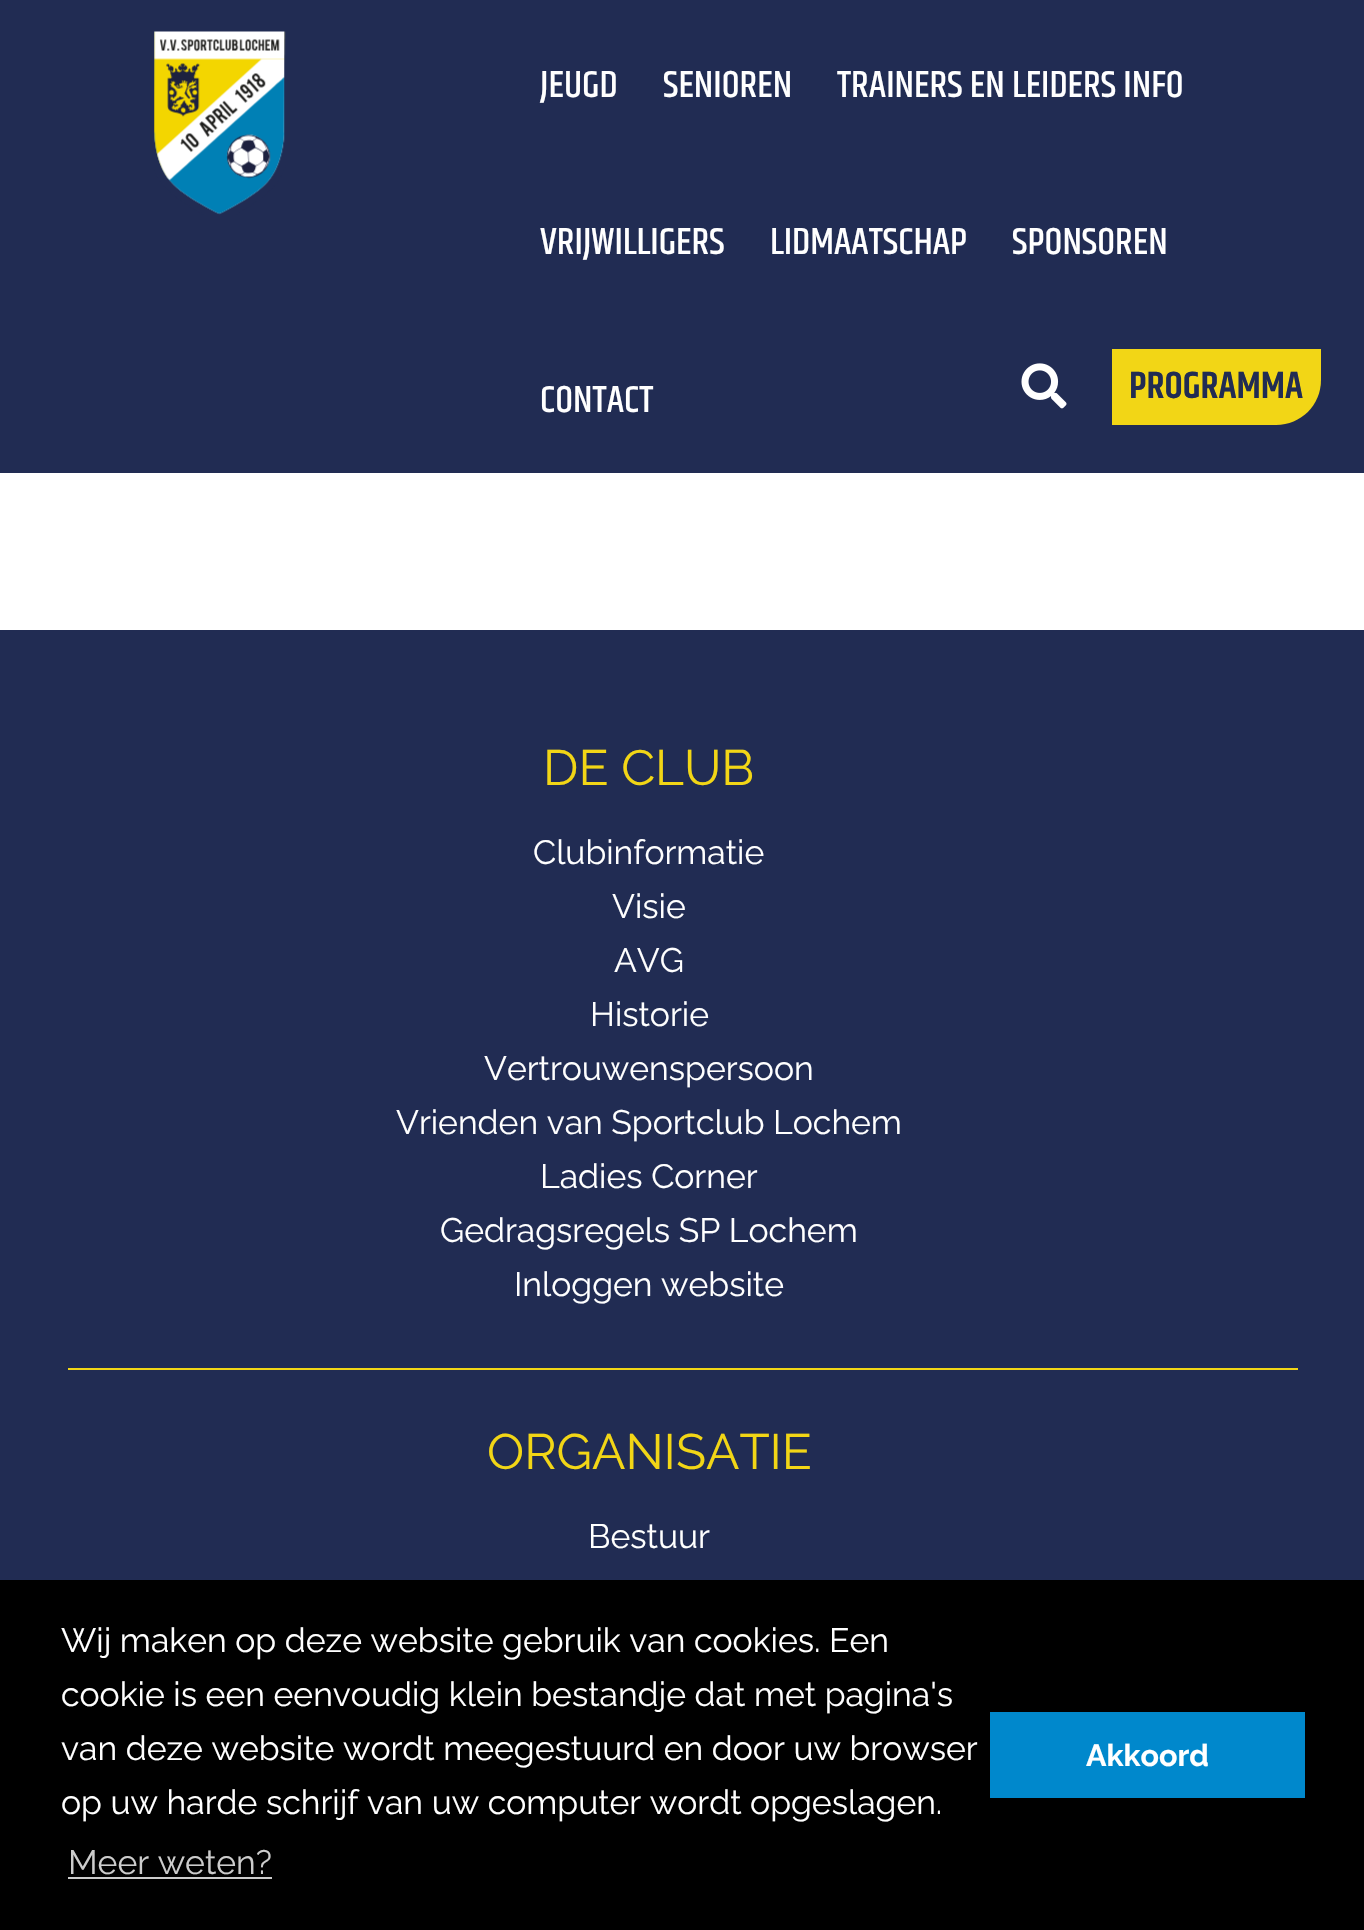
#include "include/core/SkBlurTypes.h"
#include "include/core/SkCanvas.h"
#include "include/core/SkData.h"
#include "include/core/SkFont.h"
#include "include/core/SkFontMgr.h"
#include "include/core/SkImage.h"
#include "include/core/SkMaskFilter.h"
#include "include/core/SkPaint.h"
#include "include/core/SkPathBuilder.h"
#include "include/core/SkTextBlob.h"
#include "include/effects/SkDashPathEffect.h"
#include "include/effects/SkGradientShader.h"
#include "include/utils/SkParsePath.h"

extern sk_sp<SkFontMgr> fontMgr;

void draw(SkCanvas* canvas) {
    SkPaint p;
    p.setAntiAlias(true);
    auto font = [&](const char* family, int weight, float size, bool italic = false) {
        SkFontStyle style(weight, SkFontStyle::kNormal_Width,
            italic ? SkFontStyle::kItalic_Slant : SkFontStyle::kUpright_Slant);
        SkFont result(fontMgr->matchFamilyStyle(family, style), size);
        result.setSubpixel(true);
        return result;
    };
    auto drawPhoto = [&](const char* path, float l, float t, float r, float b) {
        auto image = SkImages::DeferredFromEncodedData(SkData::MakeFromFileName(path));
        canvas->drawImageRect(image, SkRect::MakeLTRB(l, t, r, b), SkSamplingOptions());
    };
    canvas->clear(0xFFFFFFFF);
    p.setColor(0xFF212C53);
    canvas->drawRect(SkRect::MakeLTRB(0, 0, 1364, 473), p);
    drawPhoto("media/1.png", 154, 31, 286, 215);
    auto font1 = font("Khand", 500, 38.25f);
    p.setColor(0xFFFFFFFF);
    {
        const struct { const char* s; float x, y; } items[] = {
            {"JEUGD", 540, 97},
            {"SENIOREN", 663, 97},
            {"TRAINERS EN LEIDERS INFO", 837, 97},
            {"VRIJWILLIGERS", 540, 254},
            {"LIDMAATSCHAP", 770, 254},
            {"SPONSOREN", 1012, 254},
            {"CONTACT", 540, 412},
        };
        for (auto [s, x, y] : items) {
            canvas->drawString(s, x, y, font1, p);
        }
    }
    drawPhoto("media/2.png", 1021, 363, 1067, 409);
    p.setColor(0xFFF2D616);
    canvas->drawPath(SkPathBuilder().moveTo(1112, 349).lineTo(1321, 349).lineTo(1321, 380).cubicTo(1321, 405, 1301, 425, 1276, 425).lineTo(1112, 425).close().detach(), p);
    auto font2 = font("Khand", 600, 38.25f);
    p.setColor(0xFF212C53);
    canvas->drawString("PROGRAMMA", 1129, 398, font2, p);
    canvas->drawRect(SkRect::MakeLTRB(0, 630, 1364, 1580), p);
    p.setColor(0xFFF2D616);
    canvas->drawRect(SkRect::MakeLTRB(68, 1368, 1298, 1370), p);
    auto font3 = font("Raleway", 400, 49.5f);
    canvas->drawString("DE CLUB", 543, 785, font3, p);
    auto font4 = font("Raleway", 400, 33.75f);
    p.setColor(0xFFFFFFFF);
    {
        const struct { const char* s; float x, y; } items[] = {
            {"Clubinformatie", 533, 864},
            {"Visie", 612, 918},
            {"AVG", 614, 972},
            {"Historie", 590, 1026},
            {"Vertrouwenspersoon", 484, 1080},
            {"Vrienden van Sportclub Lochem", 396, 1134},
            {"Ladies Corner", 540, 1188},
            {"Gedragsregels SP Lochem", 440, 1242},
            {"Inloggen website", 514, 1296},
        };
        for (auto [s, x, y] : items) {
            canvas->drawString(s, x, y, font4, p);
        }
    }
    p.setColor(0xFFF2D616);
    canvas->drawString("ORGANISATIE", 487, 1469, font3, p);
    p.setColor(0xFFFFFFFF);
    canvas->drawString("Bestuur", 588, 1548, font4, p);
    p.setColor(0xFF000000);
    canvas->drawRect(SkRect::MakeLTRB(0, 1580, 1364, 1930), p);
    p.setColor(0xFFFFFFFF);
    {
        const struct { const char* s; float x, y; } items[] = {
            {"Wij maken op deze website gebruik van cookies. Een", 61, 1652},
            {"cookie is een eenvoudig klein bestandje dat met pagina's", 61, 1706},
            {"van deze website wordt meegestuurd en door uw browser", 61, 1760},
            {"op uw harde schrijf van uw computer wordt opgeslagen.", 61, 1814},
        };
        for (auto [s, x, y] : items) {
            canvas->drawString(s, x, y, font4, p);
        }
    }
    p.setColor(0xFFCCCCCC);
    canvas->drawString("Meer weten?", 68, 1874, font4, p);
    canvas->drawRect(SkRect::MakeLTRB(68, 1877, 272, 1879), p);
    p.setColor(0xFF0088CC);
    canvas->drawRect(SkRect::MakeLTRB(990, 1712, 1305, 1798), p);
    auto font5 = font("Raleway", 700, 30.5f);
    p.setColor(0xFFFFFFFF);
    canvas->drawString("Akkoord", 1086, 1766, font5, p);
}
